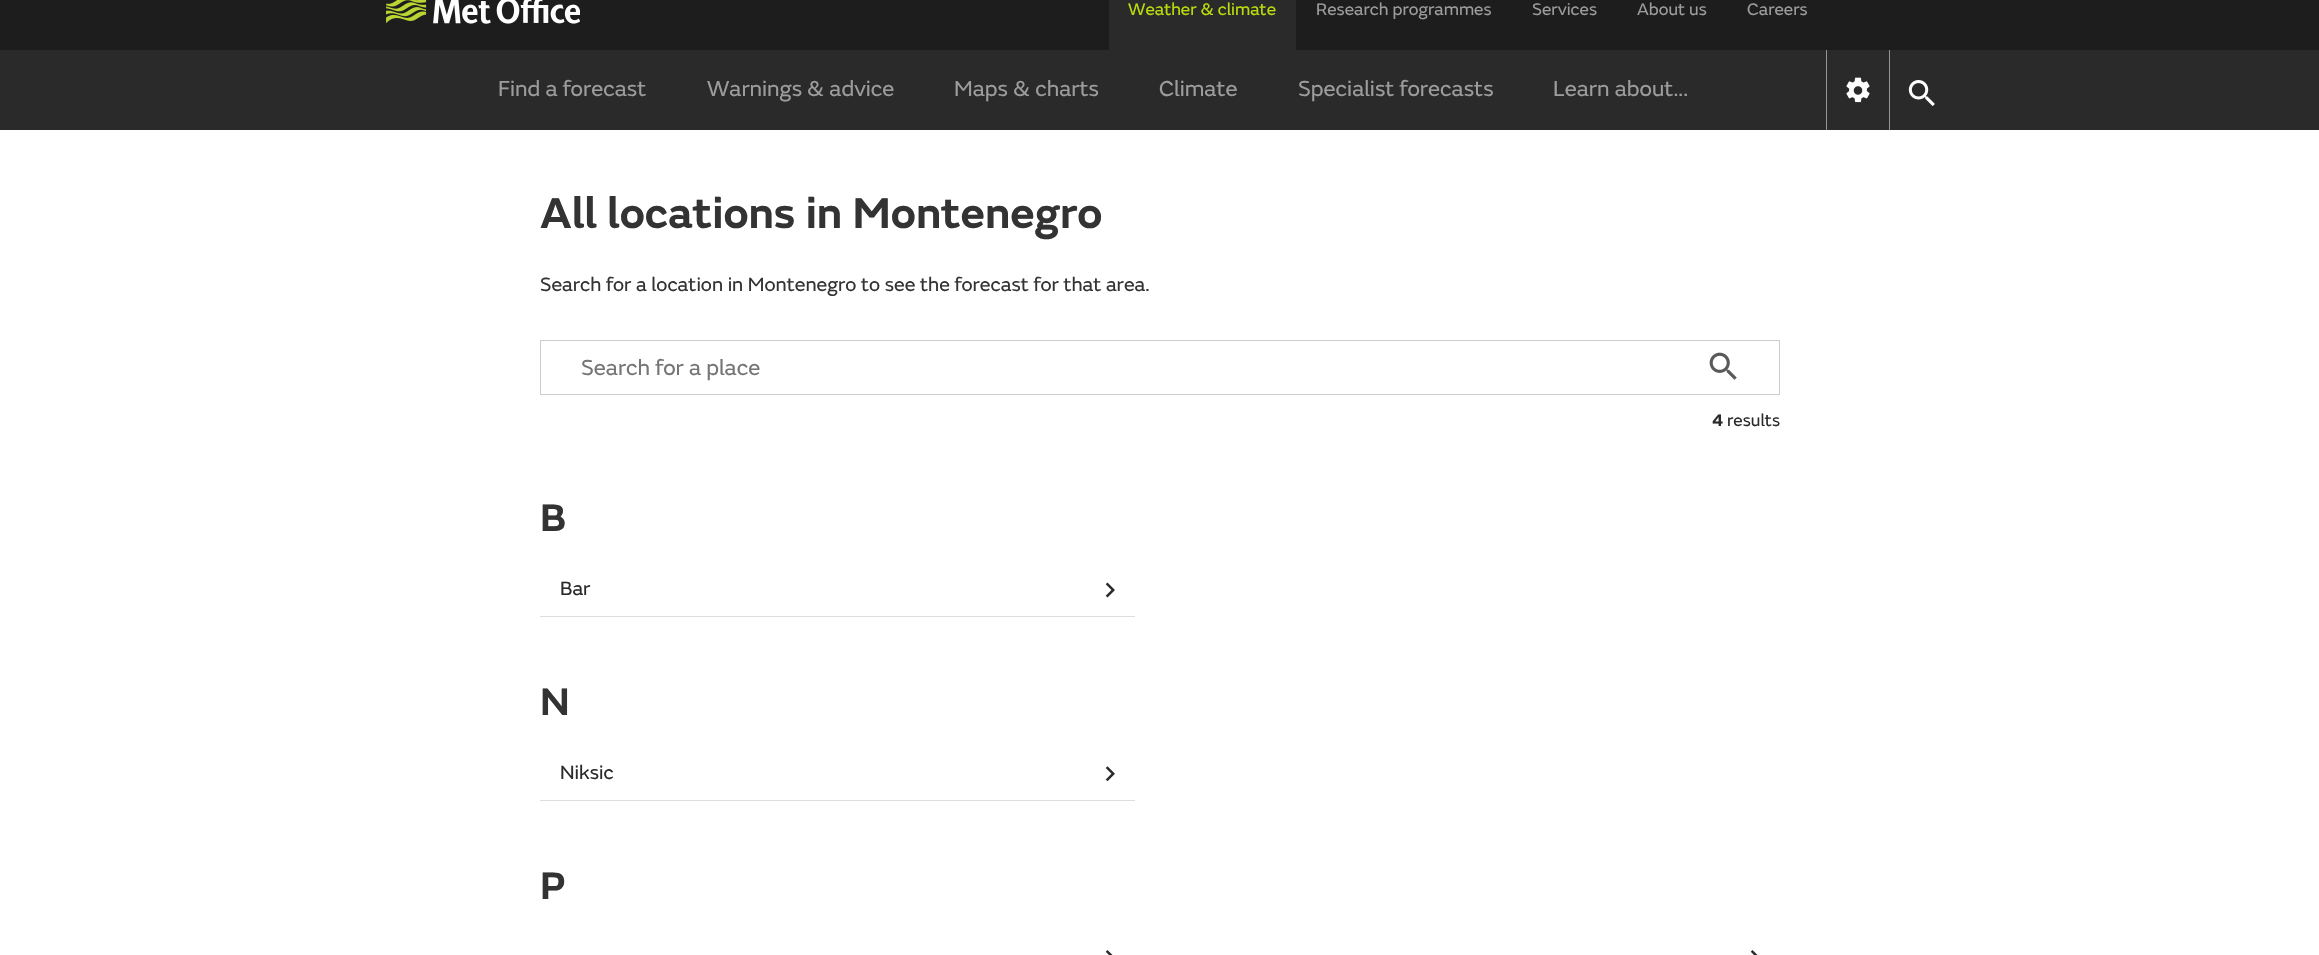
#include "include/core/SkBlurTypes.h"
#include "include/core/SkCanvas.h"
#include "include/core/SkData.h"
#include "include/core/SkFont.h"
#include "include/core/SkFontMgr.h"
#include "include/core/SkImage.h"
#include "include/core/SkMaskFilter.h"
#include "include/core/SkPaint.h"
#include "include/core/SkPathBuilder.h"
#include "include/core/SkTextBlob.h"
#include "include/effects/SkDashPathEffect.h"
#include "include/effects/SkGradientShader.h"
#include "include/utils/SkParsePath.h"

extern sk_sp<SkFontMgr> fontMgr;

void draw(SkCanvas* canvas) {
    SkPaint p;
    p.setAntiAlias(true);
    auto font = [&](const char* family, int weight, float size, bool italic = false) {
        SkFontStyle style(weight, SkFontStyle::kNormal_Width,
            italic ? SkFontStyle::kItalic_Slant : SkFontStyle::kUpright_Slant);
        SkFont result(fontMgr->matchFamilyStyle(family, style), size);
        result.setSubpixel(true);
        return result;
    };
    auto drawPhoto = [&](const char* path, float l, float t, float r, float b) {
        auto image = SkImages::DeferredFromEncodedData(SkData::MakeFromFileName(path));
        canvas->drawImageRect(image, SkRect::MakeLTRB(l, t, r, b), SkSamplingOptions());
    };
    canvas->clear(0xFFFFFFFF);
    p.setColor(0xFF1D1D1D);
    canvas->drawRect(SkRect::MakeLTRB(0, 0, 2319, 50), p);
    drawPhoto("media/1.png", 386, 0, 580, 24);
    p.setColor(0xFF2A2A2A);
    canvas->drawRect(SkRect::MakeLTRB(1109, 0, 1296, 50), p);
    auto font1 = font("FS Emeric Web", 400, 17.5f);
    p.setColor(0xFFB9DC0C);
    canvas->drawString("Weather & climate", 1128, 15, font1, p);
    p.setColor(0xFF9C9C9C);
    {
        const struct { const char* s; float x, y; } items[] = {
            {"Research programmes", 1316, 15},
            {"Services", 1532, 15},
            {"About us", 1637, 15},
            {"Careers", 1747, 15},
        };
        for (auto [s, x, y] : items) {
            canvas->drawString(s, x, y, font1, p);
        }
    }
    p.setColor(0xFF2A2A2A);
    canvas->drawRect(SkRect::MakeLTRB(0, 50, 2319, 130), p);
    auto font2 = font("FS Emeric Web", 400, 22.5f);
    p.setColor(0xFF9C9C9C);
    {
        const struct { const char* s; float x, y; } items[] = {
            {"Find a forecast", 498, 96},
            {"Warnings & advice", 707, 96},
            {"Maps & charts", 954, 96},
            {"Climate", 1159, 96},
            {"Specialist forecasts", 1298, 96},
            {"Learn about...", 1553, 96},
        };
        for (auto [s, x, y] : items) {
            canvas->drawString(s, x, y, font2, p);
        }
    }
    p.setColor(0xFF959595);
    canvas->drawRect(SkRect::MakeLTRB(1826, 50, 1827, 130), p);
    drawPhoto("media/2.png", 1846, 77, 1870, 103);
    canvas->drawRect(SkRect::MakeLTRB(1889, 50, 1890, 130), p);
    drawPhoto("media/3.png", 1908, 80, 1935, 106);
    auto font3 = font("FS Emeric Web", 600, 45);
    p.setColor(0xFF333333);
    canvas->drawString("All locations in Montenegro", 540, 228, font3, p);
    auto font4 = font("FS Emeric Web", 400, 20);
    canvas->drawString("Search for a location in Montenegro to see the forecast for that area.", 540, 291, font4, p);
    p.setStyle(SkPaint::kStroke_Style);
    p.setStrokeWidth(1);
    p.setColor(0xFFCCCCCC);
    canvas->drawRect(SkRect::MakeLTRB(540.5f, 340.5f, 1779.5f, 394.5f), p);
    p.setStyle(SkPaint::kFill_Style);
    p.setColor(0xFF757575);
    canvas->drawString("Search for a place", 581, 375, font2, p);
    drawPhoto("media/4.png", 1709, 352, 1737, 380);
    auto font5 = font("FS Emeric Web", 600, 17.5f);
    p.setColor(0xFF2A2A2A);
    canvas->drawString("4", 1712, 426, font5, p);
    canvas->drawString("results", 1727, 426, font1, p);
    auto font6 = font("FS Emeric Web", 600, 40);
    p.setColor(0xFF333333);
    canvas->drawString("B", 540, 531, font6, p);
    p.setColor(0xFFDDDDDD);
    canvas->drawRect(SkRect::MakeLTRB(540, 616, 1135, 617), p);
    p.setColor(0xFF2A2A2A);
    canvas->drawString("Bar", 560, 595, font4, p);
    drawPhoto("media/5.png", 1105, 582, 1115, 598);
    p.setColor(0xFF333333);
    canvas->drawString("N", 540, 715, font6, p);
    p.setColor(0xFFDDDDDD);
    canvas->drawRect(SkRect::MakeLTRB(540, 800, 1135, 801), p);
    p.setColor(0xFF2A2A2A);
    canvas->drawString("Niksic", 560, 779, font4, p);
    drawPhoto("media/6.png", 1105, 766, 1115, 782);
    p.setColor(0xFF333333);
    canvas->drawString("P", 540, 899, font6, p);
    drawPhoto("media/7.png", 1105, 950, 1113, 955);
    drawPhoto("media/7.png", 1750, 950, 1758, 955);
}
